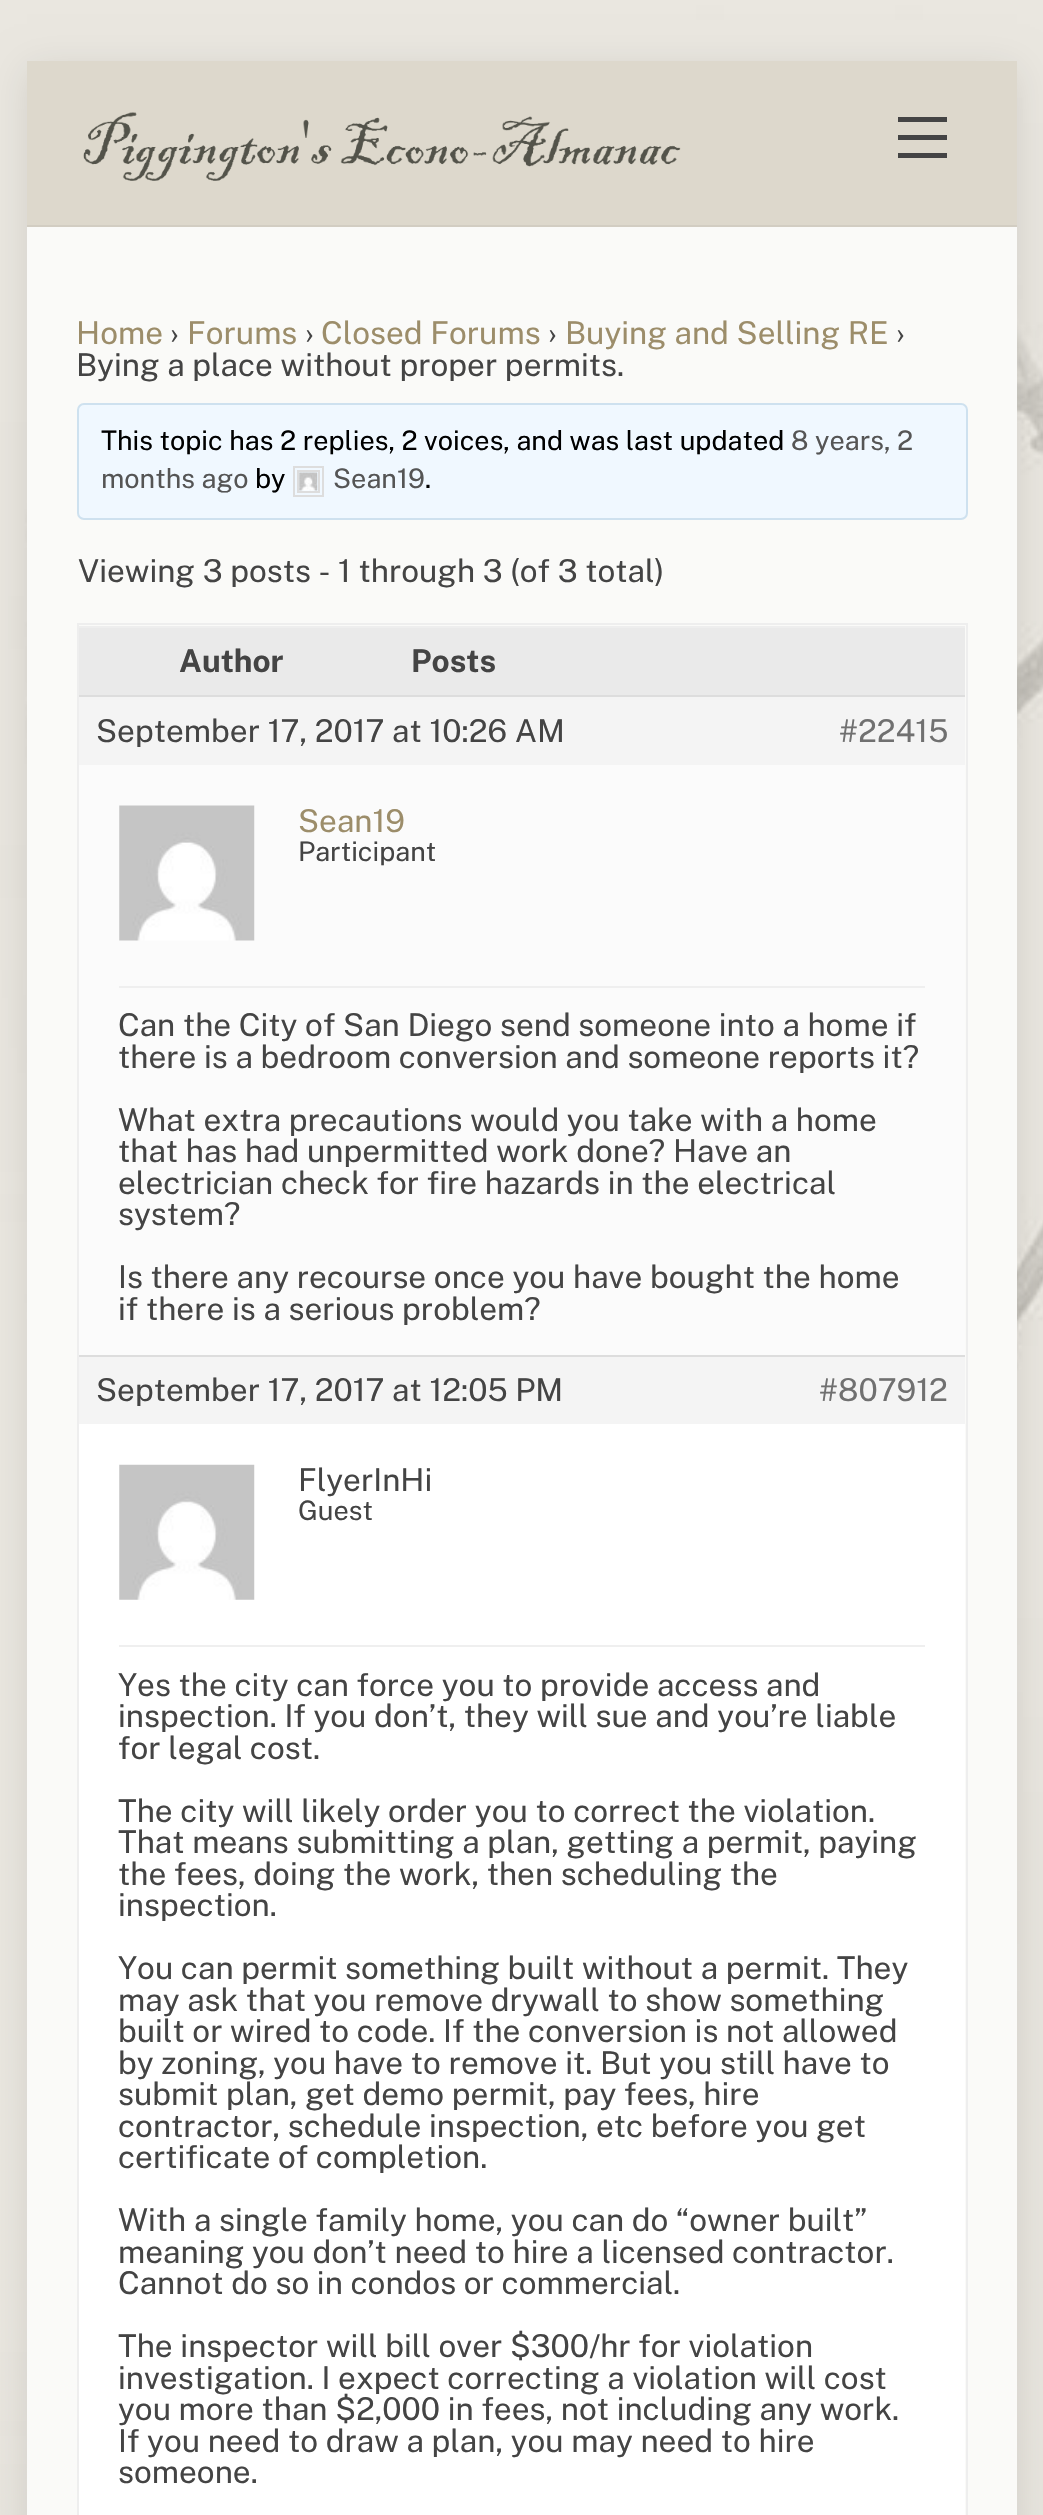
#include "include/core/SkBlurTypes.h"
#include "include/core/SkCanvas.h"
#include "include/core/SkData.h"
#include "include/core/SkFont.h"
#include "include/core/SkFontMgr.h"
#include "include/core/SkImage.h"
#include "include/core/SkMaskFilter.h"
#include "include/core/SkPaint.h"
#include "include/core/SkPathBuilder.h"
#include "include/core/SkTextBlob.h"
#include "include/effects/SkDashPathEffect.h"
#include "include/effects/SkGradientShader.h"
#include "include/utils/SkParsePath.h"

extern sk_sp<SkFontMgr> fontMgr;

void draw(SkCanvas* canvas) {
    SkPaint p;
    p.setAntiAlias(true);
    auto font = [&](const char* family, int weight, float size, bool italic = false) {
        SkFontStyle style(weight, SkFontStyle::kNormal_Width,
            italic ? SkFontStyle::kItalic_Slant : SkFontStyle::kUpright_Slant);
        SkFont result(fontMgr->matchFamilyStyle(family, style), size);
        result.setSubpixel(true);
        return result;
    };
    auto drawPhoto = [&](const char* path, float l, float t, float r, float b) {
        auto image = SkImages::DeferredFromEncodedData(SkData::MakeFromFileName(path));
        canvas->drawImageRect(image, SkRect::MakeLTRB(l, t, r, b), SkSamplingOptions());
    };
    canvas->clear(0xFFFFFFFF);
    drawPhoto("media/1.png", 0, 0, 1043, 2515);
    p.setColor(0x1A000000);
    p.setMaskFilter(SkMaskFilter::MakeBlur(kNormal_SkBlurStyle, 18));
    canvas->drawRect(SkRect::MakeLTRB(27, 68, 1017, 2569), p);
    p.setMaskFilter(nullptr);
    p.setColor(0xFFDDD8CC);
    canvas->drawRect(SkRect::MakeLTRB(27, 61, 1017, 225), p);
    p.setColor(0xFFD2CDC2);
    canvas->drawRect(SkRect::MakeLTRB(27, 225, 1017, 227), p);
    drawPhoto("media/2.png", 83, 112, 681, 181);
    {
        const struct { float l, t, r, b; SkColor color; } items[] = {
            {898, 153, 947, 158, 0xFF444444},
            {898, 117, 947, 122, 0xFF444444},
            {898, 135, 947, 140, 0xFF444444},
            {27, 227, 1017, 2515, 0xFFFAFAF8},
        };
        for (auto [l, t, r, b, color] : items) {
            p.setColor(color);
            canvas->drawRect(SkRect::MakeLTRB(l, t, r, b), p);
        }
    }
    auto font1 = font("Public Sans", 400, 31.5f);
    p.setColor(0xFF9C8D6A);
    canvas->drawString("Home", 76, 344, font1, p);
    p.setColor(0xFF444444);
    canvas->drawString("›", 170, 344, font1, p);
    p.setColor(0xFF9C8D6A);
    canvas->drawString("Forums", 187, 344, font1, p);
    p.setColor(0xFF444444);
    canvas->drawString("›", 305, 344, font1, p);
    p.setColor(0xFF9C8D6A);
    canvas->drawString("Closed Forums", 321, 344, font1, p);
    p.setColor(0xFF444444);
    canvas->drawString("›", 548, 344, font1, p);
    p.setColor(0xFF9C8D6A);
    canvas->drawString("Buying and Selling RE", 565, 344, font1, p);
    p.setColor(0xFF444444);
    canvas->drawString("›", 896, 344, font1, p);
    canvas->drawString("Bying a place without proper permits.", 76, 376, font1, p);
    p.setColor(0xFFF0F8FF);
    canvas->drawRoundRect(SkRect::MakeLTRB(78, 404, 967, 519), 6, 6, p);
    p.setStyle(SkPaint::kStroke_Style);
    p.setStrokeWidth(2);
    p.setColor(0xFFCEE1EF);
    canvas->drawRoundRect(SkRect::MakeLTRB(78, 404, 967, 519), 6, 6, p);
    auto font2 = font("Public Sans", 400, 27);
    p.setStyle(SkPaint::kFill_Style);
    p.setColor(0xFF000000);
    canvas->drawString("This topic has 2 replies, 2 voices, and was last updated", 101, 450, font2, p);
    p.setColor(0xFF555555);
    canvas->drawString("8 years, 2", 791, 450, font2, p);
    canvas->drawString("months ago", 101, 488, font2, p);
    p.setColor(0xFF000000);
    canvas->drawString("by", 255, 488, font2, p);
    p.setStyle(SkPaint::kStroke_Style);
    p.setColor(0xFFDDDDDD);
    canvas->drawRect(SkRect::MakeLTRB(294, 467, 323, 496), p);
    canvas->drawRect(SkRect::MakeLTRB(298, 471, 319, 492), p);
    drawPhoto("media/3.png", 299, 472, 318, 491);
    p.setStyle(SkPaint::kFill_Style);
    p.setColor(0xFF555555);
    canvas->drawString("Sean19", 333, 488, font2, p);
    p.setColor(0xFF000000);
    canvas->drawString(".", 425, 488, font2, p);
    p.setColor(0xFF444444);
    canvas->drawString("Viewing 3 posts - 1 through 3 (of 3 total)", 78, 582, font1, p);
    p.setStyle(SkPaint::kStroke_Style);
    p.setColor(0xFFEEEEEE);
    canvas->drawRect(SkRect::MakeLTRB(78, 624, 967, 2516), p);
    p.setStyle(SkPaint::kFill_Style);
    p.setColor(0xFFEAEAEA);
    canvas->drawRect(SkRect::MakeLTRB(79, 628, 965, 695), p);
    p.setColor(0xFFEEEEEE);
    canvas->drawRect(SkRect::MakeLTRB(79, 626, 965, 628), p);
    auto font3 = font("Public Sans", 700, 31.5f);
    p.setColor(0xFF444444);
    canvas->drawString("Author", 179, 672, font3, p);
    canvas->drawString("Posts", 411, 672, font3, p);
    p.setColor(0xFFF4F4F4);
    canvas->drawRect(SkRect::MakeLTRB(79, 697, 965, 765), p);
    p.setColor(0xFFDDDDDD);
    canvas->drawRect(SkRect::MakeLTRB(79, 695, 965, 697), p);
    p.setColor(0xFF444444);
    canvas->drawString("September 17, 2017 at 10:26 AM", 96, 742, font1, p);
    p.setColor(0xFF707070);
    canvas->drawString("#22415", 839, 742, font1, p);
    p.setColor(0xFFFBFBFB);
    canvas->drawRect(SkRect::MakeLTRB(79, 765, 965, 1355), p);
    p.setColor(0xFFEFEFEF);
    canvas->drawRect(SkRect::MakeLTRB(119, 986, 925, 988), p);
    drawPhoto("media/4.png", 119, 805, 255, 941);
    p.setColor(0xFF9C8D6A);
    canvas->drawString("Sean19", 298, 832, font1, p);
    p.setColor(0xFF444444);
    canvas->drawString("Participant", 298, 861, font2, p);
    {
        const struct { const char* s; float x, y; } items[] = {
            {"Can the City of San Diego send someone into a home if", 118, 1036},
            {"there is a bedroom conversion and someone reports it?", 118, 1068},
            {"What extra precautions would you take with a home", 118, 1131},
            {"that has had unpermitted work done? Have an", 118, 1162},
            {"electrician check for fire hazards in the electrical", 118, 1194},
            {"system?", 118, 1225},
            {"Is there any recourse once you have bought the home", 118, 1288},
            {"if there is a serious problem?", 118, 1320},
        };
        for (auto [s, x, y] : items) {
            canvas->drawString(s, x, y, font1, p);
        }
    }
    p.setColor(0xFFF4F4F4);
    canvas->drawRect(SkRect::MakeLTRB(79, 1357, 965, 1424), p);
    p.setColor(0xFFDDDDDD);
    canvas->drawRect(SkRect::MakeLTRB(79, 1355, 965, 1357), p);
    p.setColor(0xFF444444);
    canvas->drawString("September 17, 2017 at 12:05 PM", 96, 1401, font1, p);
    p.setColor(0xFF707070);
    canvas->drawString("#807912", 819, 1401, font1, p);
    p.setColor(0xFFFFFFFF);
    canvas->drawRect(SkRect::MakeLTRB(79, 1424, 965, 2515), p);
    p.setColor(0xFFEFEFEF);
    canvas->drawRect(SkRect::MakeLTRB(119, 1645, 925, 1647), p);
    drawPhoto("media/5.png", 119, 1464, 255, 1600);
    p.setColor(0xFF444444);
    canvas->drawString("FlyerInHi", 298, 1491, font1, p);
    canvas->drawString("Guest", 298, 1520, font2, p);
    {
        const struct { const char* s; float x, y; } items[] = {
            {"Yes the city can force you to provide access and", 118, 1696},
            {"inspection. If you don’t, they will sue and you’re liable", 118, 1727},
            {"for legal cost.", 118, 1759},
            {"The city will likely order you to correct the violation.", 118, 1822},
            {"That means submitting a plan, getting a permit, paying", 118, 1853},
            {"the fees, doing the work, then scheduling the", 118, 1885},
            {"inspection.", 118, 1916},
            {"You can permit something built without a permit. They", 118, 1979},
            {"may ask that you remove drywall to show something", 118, 2011},
            {"built or wired to code. If the conversion is not allowed", 118, 2042},
            {"by zoning, you have to remove it. But you still have to", 118, 2074},
            {"submit plan, get demo permit, pay fees, hire", 118, 2105},
            {"contractor, schedule inspection, etc before you get", 118, 2137},
            {"certificate of completion.", 118, 2168},
            {"With a single family home, you can do “owner built”", 118, 2231},
            {"meaning you don’t need to hire a licensed contractor.", 118, 2263},
            {"Cannot do so in condos or commercial.", 118, 2294},
            {"The inspector will bill over $300/hr for violation", 118, 2357},
            {"investigation. I expect correcting a violation will cost", 118, 2389},
            {"you more than $2,000 in fees, not including any work.", 118, 2420},
            {"If you need to draw a plan, you may need to hire", 118, 2452},
            {"someone.", 118, 2483},
        };
        for (auto [s, x, y] : items) {
            canvas->drawString(s, x, y, font1, p);
        }
    }
}
